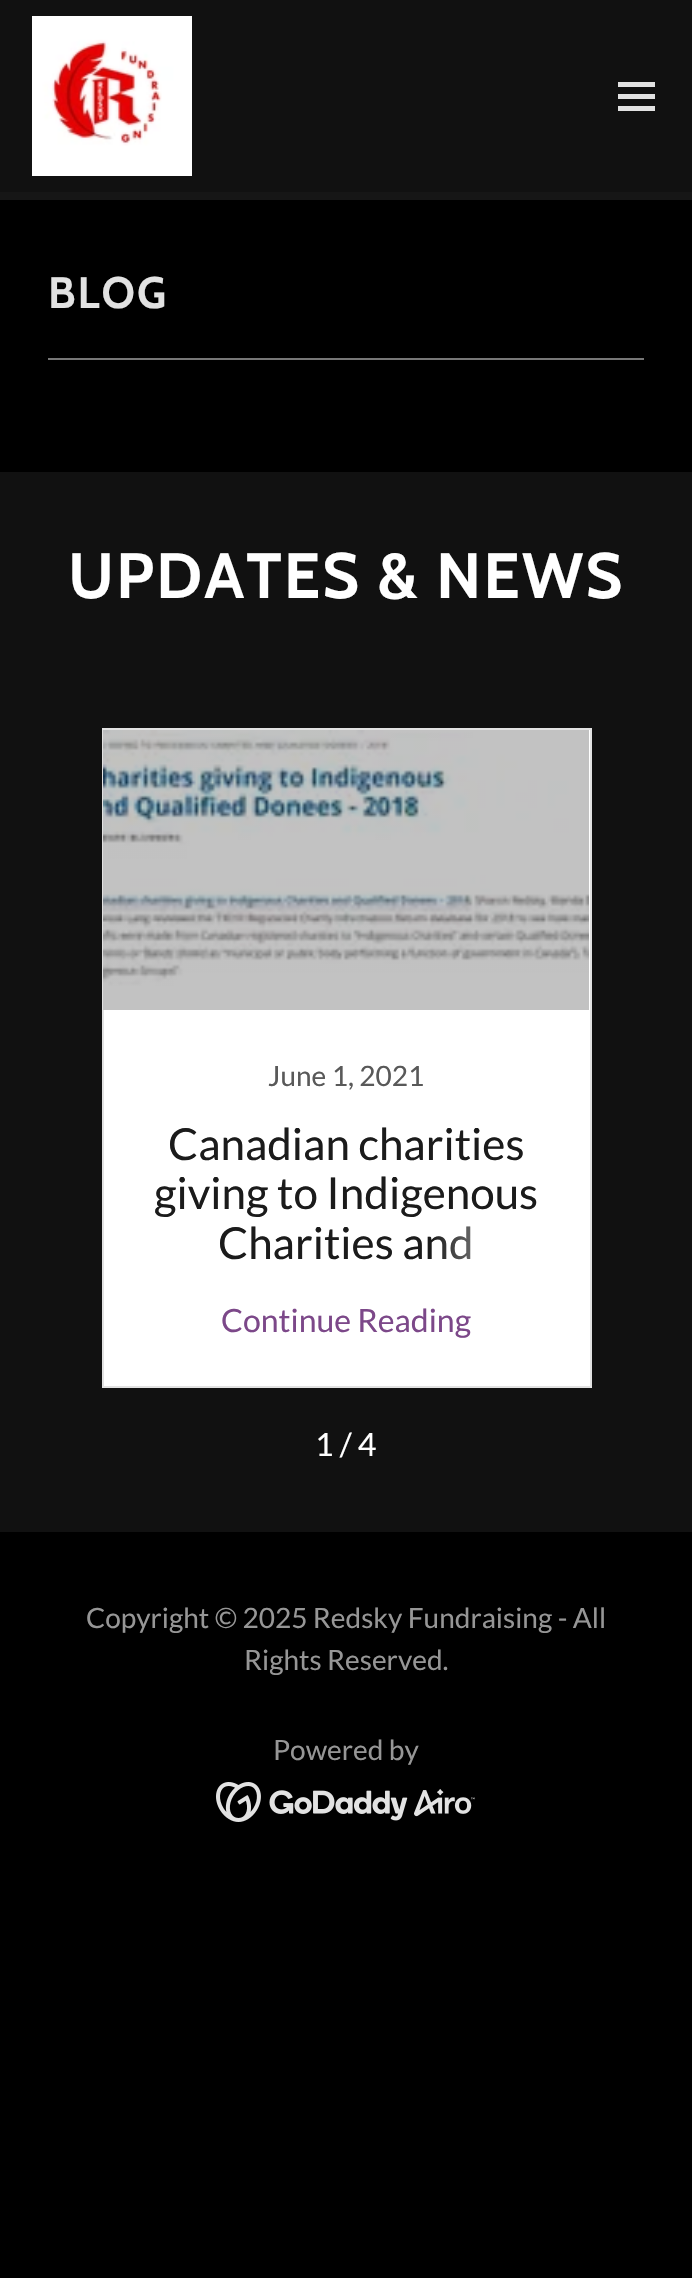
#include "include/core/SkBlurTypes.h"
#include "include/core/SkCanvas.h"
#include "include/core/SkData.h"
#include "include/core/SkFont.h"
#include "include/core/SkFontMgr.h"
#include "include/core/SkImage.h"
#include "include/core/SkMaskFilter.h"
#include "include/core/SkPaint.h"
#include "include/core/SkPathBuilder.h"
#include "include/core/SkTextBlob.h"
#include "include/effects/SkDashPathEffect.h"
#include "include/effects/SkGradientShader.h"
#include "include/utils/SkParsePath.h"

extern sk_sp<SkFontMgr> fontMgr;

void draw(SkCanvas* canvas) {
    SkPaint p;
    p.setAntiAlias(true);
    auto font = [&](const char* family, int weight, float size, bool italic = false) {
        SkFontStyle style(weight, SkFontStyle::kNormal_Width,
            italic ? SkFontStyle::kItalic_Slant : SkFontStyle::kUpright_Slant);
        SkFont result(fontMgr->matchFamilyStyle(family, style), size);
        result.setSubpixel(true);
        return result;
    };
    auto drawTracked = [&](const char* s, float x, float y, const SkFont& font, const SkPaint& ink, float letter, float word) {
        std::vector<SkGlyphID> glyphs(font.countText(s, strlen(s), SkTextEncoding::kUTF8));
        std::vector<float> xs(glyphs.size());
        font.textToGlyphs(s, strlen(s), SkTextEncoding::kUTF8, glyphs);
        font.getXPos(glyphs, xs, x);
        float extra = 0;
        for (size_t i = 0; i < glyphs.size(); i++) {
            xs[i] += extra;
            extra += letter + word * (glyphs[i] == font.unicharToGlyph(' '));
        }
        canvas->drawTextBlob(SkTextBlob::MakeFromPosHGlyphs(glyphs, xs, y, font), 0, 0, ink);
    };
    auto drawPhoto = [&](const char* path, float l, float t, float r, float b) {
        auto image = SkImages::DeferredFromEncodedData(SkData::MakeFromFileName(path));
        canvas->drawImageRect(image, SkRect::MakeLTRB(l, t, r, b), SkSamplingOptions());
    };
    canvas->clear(0xFF000000);
    p.setColor(0xFF161616);
    canvas->drawRect(SkRect::MakeLTRB(0, 192, 692, 200), p);
    p.setColor(0xFF111111);
    canvas->drawRect(SkRect::MakeLTRB(0, 0, 692, 192), p);
    drawPhoto("media/1.png", 32, 16, 192, 176);
    {
        const struct { float l, t, r, b; SkColor color; } items[] = {
            {618, 82, 655, 87, 0xFFE2E2E2},
            {618, 94, 655, 99, 0xFFE2E2E2},
            {618, 106, 655, 111, 0xFFE2E2E2},
        };
        for (auto [l, t, r, b, color] : items) {
            p.setColor(color);
            canvas->drawRect(SkRect::MakeLTRB(l, t, r, b), p);
        }
    }
    auto font1 = font("Cabin", 700, 44);
    drawTracked("BLOG", 48, 308, font1, p, 2, 0);
    p.setColor(0xFF777777);
    canvas->drawRect(SkRect::MakeLTRB(48, 358, 644, 360), p);
    p.setColor(0xFF111111);
    canvas->drawRect(SkRect::MakeLTRB(0, 472, 692, 1532), p);
    auto font2 = font("Cabin", 700, 64);
    p.setColor(0xFFFFFFFF);
    drawTracked("UPDATES & NEWS", 68, 598, font2, p, 2, 0);
    canvas->drawRect(SkRect::MakeLTRB(103, 729, 591, 1387), p);
    p.setStyle(SkPaint::kStroke_Style);
    p.setStrokeWidth(2);
    p.setColor(0xFFE2E2E2);
    canvas->drawRect(SkRect::MakeLTRB(103, 729, 591, 1387), p);
    drawPhoto("media/2.png", 103, 730, 589, 1010);
    auto font3 = font("Lato", 400, 28);
    p.setStyle(SkPaint::kFill_Style);
    p.setColor(0xFF595959);
    canvas->drawString("June 1, 2021", 268, 1086, font3, p);
    auto font4 = font("Lato", 400, 44);
    p.setColor(0xFF1B1B1B);
    {
        const struct { const char* s; float x, y; } items[] = {
            {"Canadian charities", 168, 1160},
            {"giving to Indigenous", 154, 1209},
            {"Charities and", 218, 1259},
        };
        for (auto [s, x, y] : items) {
            canvas->drawString(s, x, y, font4, p);
        }
    }
    {
        const SkColor colors[] = {0x00FFFFFF, 0xFFFFFFFF};
        const float stops[] = {0, 1};
        const SkPoint ends[] = {{431, 1246}, {557, 1246}};
        p.setShader(SkGradientShader::MakeLinear(ends, colors, stops, 2, SkTileMode::kClamp));
        p.setAlpha(255);
    }
    canvas->drawRect(SkRect::MakeLTRB(434, 1226, 471, 1260), p);
    auto font5 = font("Lato", 400, 32);
    p.setShader(nullptr);
    p.setColor(0xFF7C4889);
    canvas->drawString("Continue Reading", 221, 1332, font5, p);
    p.setColor(0xFFFFFFFF);
    canvas->drawString("1 / 4", 315, 1456, font5, p);
    p.setColor(0xFF969696);
    {
        const struct { const char* s; float x, y; } items[] = {
            {"Copyright © 2025 Redsky Fundraising - All", 86, 1628},
            {"Rights Reserved.", 244, 1670},
            {"Powered by", 273, 1760},
        };
        for (auto [s, x, y] : items) {
            canvas->drawString(s, x, y, font3, p);
        }
    }
    drawPhoto("media/3.png", 216, 1782, 475, 1822);
}
